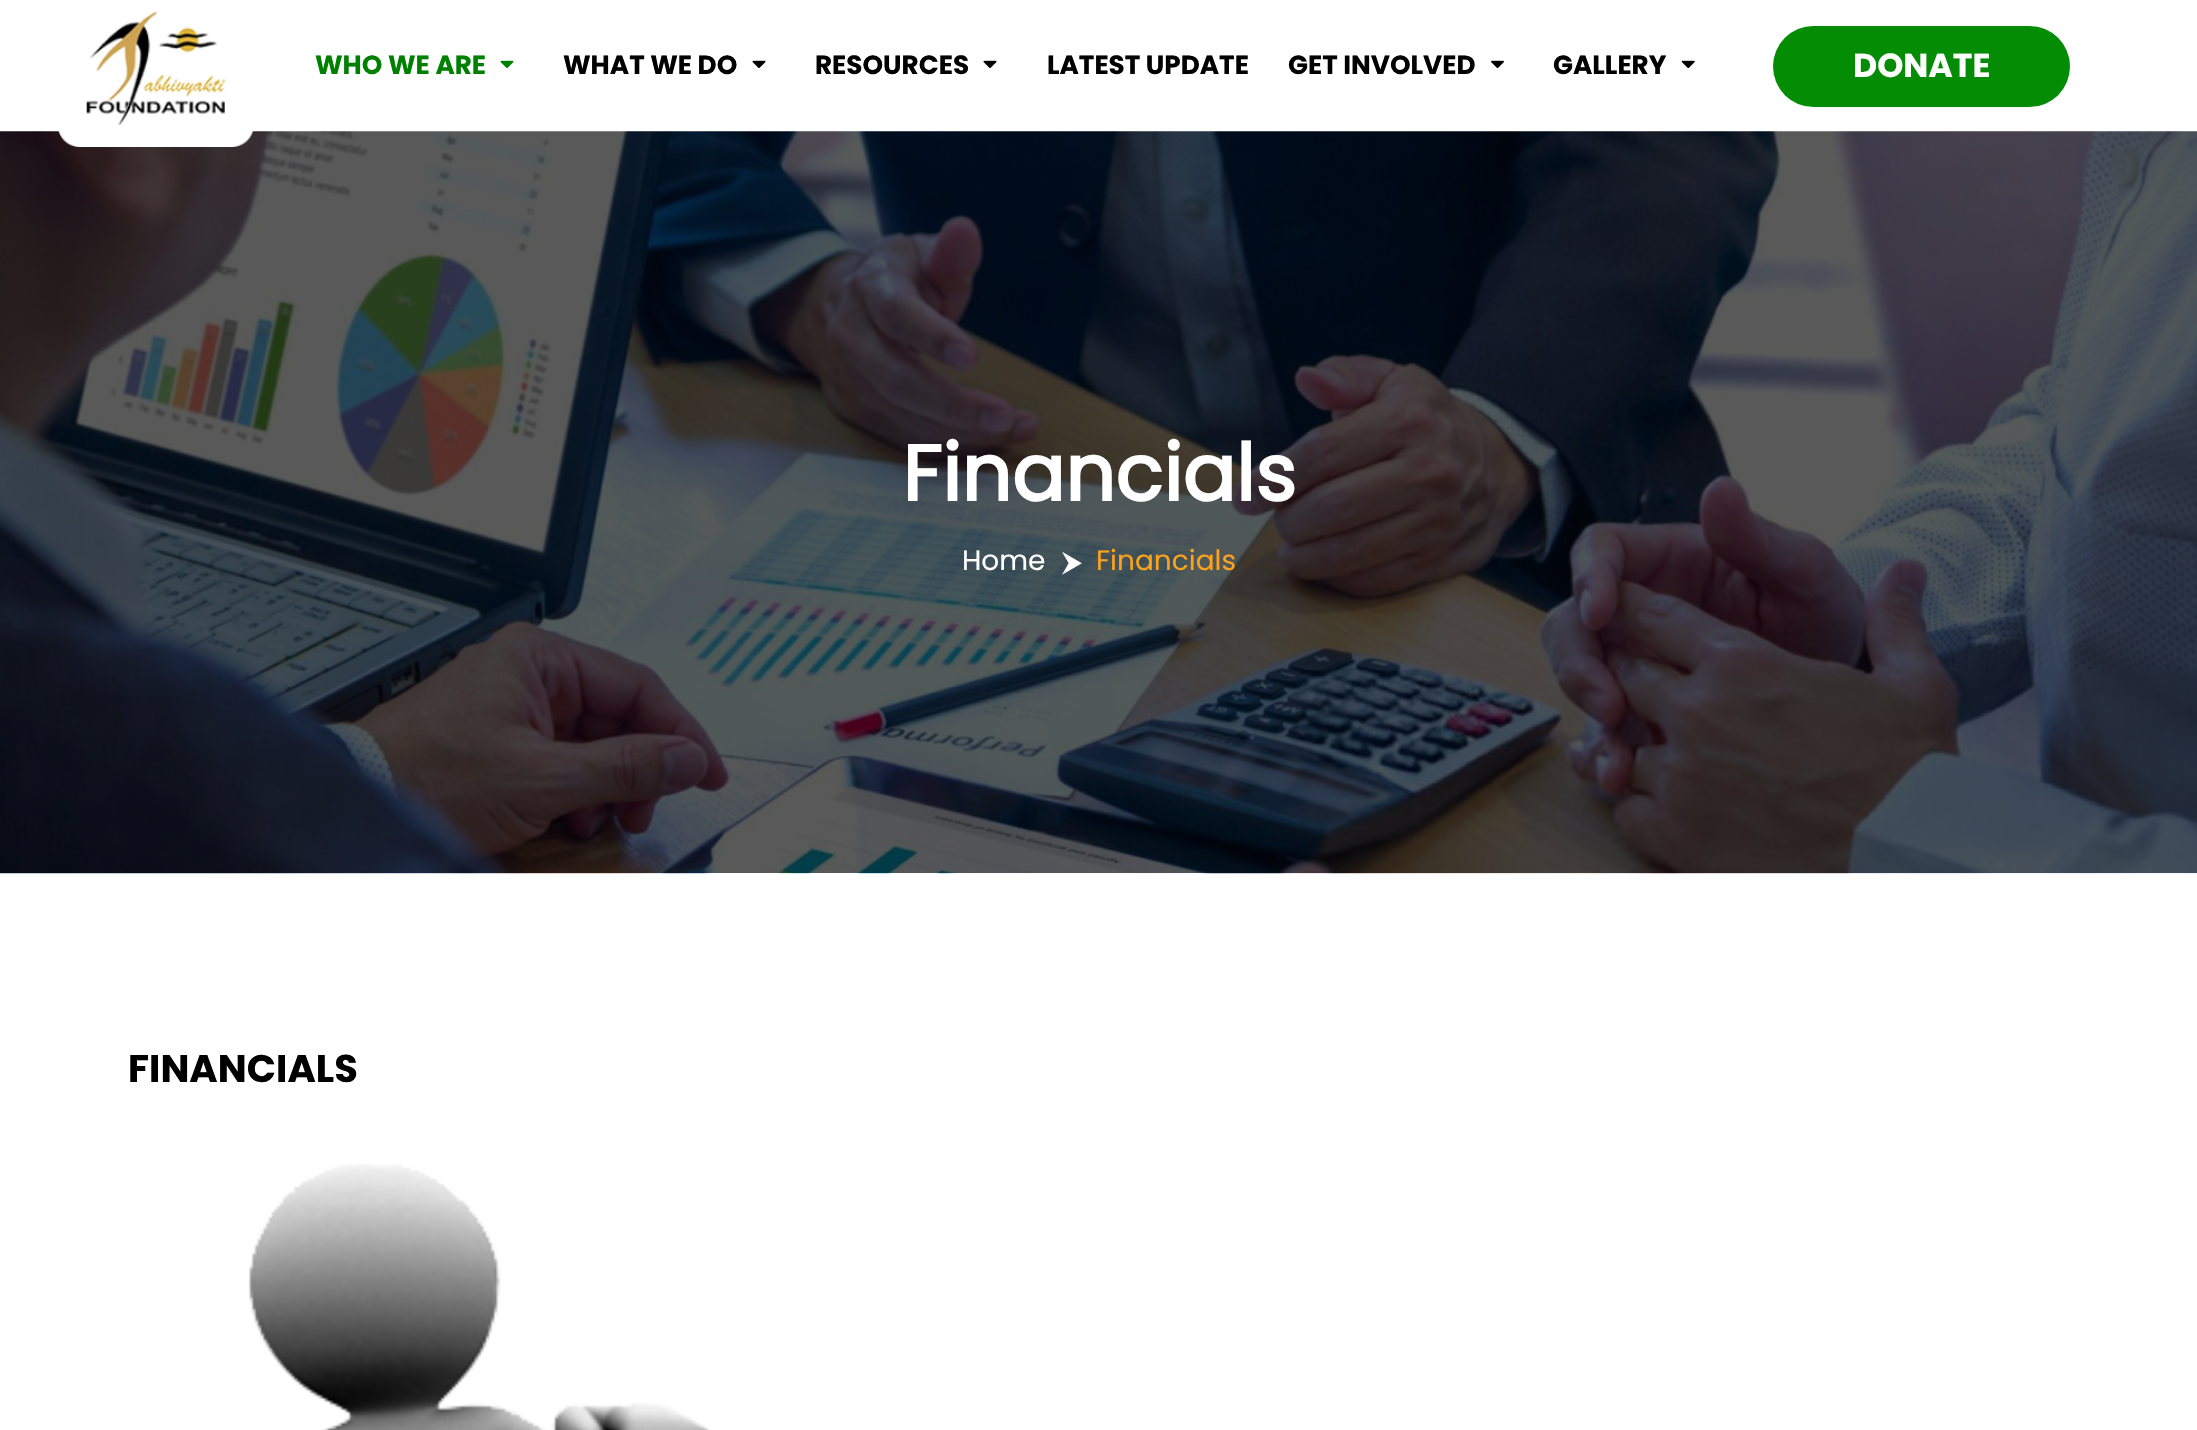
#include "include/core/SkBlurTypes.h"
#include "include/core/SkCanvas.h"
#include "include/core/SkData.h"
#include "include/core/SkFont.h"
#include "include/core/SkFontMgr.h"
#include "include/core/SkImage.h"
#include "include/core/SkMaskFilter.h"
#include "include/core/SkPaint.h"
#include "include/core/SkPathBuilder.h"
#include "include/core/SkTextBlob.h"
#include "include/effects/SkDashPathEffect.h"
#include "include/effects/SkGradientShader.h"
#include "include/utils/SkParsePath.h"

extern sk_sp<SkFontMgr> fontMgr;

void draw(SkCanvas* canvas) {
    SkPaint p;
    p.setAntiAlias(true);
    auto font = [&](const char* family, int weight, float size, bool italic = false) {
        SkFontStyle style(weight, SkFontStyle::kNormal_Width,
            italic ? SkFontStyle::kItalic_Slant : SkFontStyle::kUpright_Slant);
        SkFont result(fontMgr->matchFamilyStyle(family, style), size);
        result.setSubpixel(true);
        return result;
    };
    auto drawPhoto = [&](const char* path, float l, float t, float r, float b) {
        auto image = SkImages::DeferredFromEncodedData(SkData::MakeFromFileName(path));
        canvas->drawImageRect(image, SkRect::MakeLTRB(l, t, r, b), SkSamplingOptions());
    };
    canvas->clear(0xFFFFFFFF);
    drawPhoto("media/6.png", 0, 131, 2197, 874);
    drawPhoto("media/1.png", 57, 12, 254, 147);
    auto font1 = font("Poppins", 700, 26.25f);
    p.setColor(0xFF008000);
    canvas->drawString("WHO WE ARE", 315, 74, font1, p);
    drawPhoto("media/2.png", 500, 60, 514, 68);
    p.setColor(0xFF000000);
    canvas->drawString("WHAT WE DO", 563, 74, font1, p);
    drawPhoto("media/3.png", 752, 60, 766, 68);
    canvas->drawString("RESOURCES", 815, 74, font1, p);
    drawPhoto("media/3.png", 983, 60, 997, 68);
    canvas->drawString("LATEST UPDATE", 1047, 74, font1, p);
    canvas->drawString("GET INVOLVED", 1288, 74, font1, p);
    drawPhoto("media/4.png", 1491, 60, 1504, 69);
    canvas->drawString("GALLERY", 1553, 74, font1, p);
    drawPhoto("media/5.png", 1681, 60, 1695, 69);
    p.setColor(0xFF048C04);
    canvas->drawRoundRect(SkRect::MakeLTRB(1773, 26, 2070, 107), 40.5f, 40.5f, p);
    auto font2 = font("Poppins", 700, 33.25f);
    p.setColor(0xFFFFFFFF);
    canvas->drawString("DONATE", 1853, 77, font2, p);
    auto font3 = font("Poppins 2", 700, 78.75f);
    canvas->drawString("Financials", 902, 501, font3, p);
    auto font4 = font("Poppins", 400, 28);
    canvas->drawString("Home", 962, 570, font4, p);
    auto font5 = font("FreeSans", 400, 28);
    canvas->drawString("⮞", 1062, 571, font5, p);
    p.setColor(0xFFFDA31B);
    canvas->drawString("Financials", 1096, 570, font4, p);
    auto font6 = font("Poppins", 700, 38.5f);
    p.setColor(0xFF000000);
    canvas->drawString("FINANCIALS", 128, 1082, font6, p);
    drawPhoto("media/7.png", 248, 1163, 709, 1430);
}
